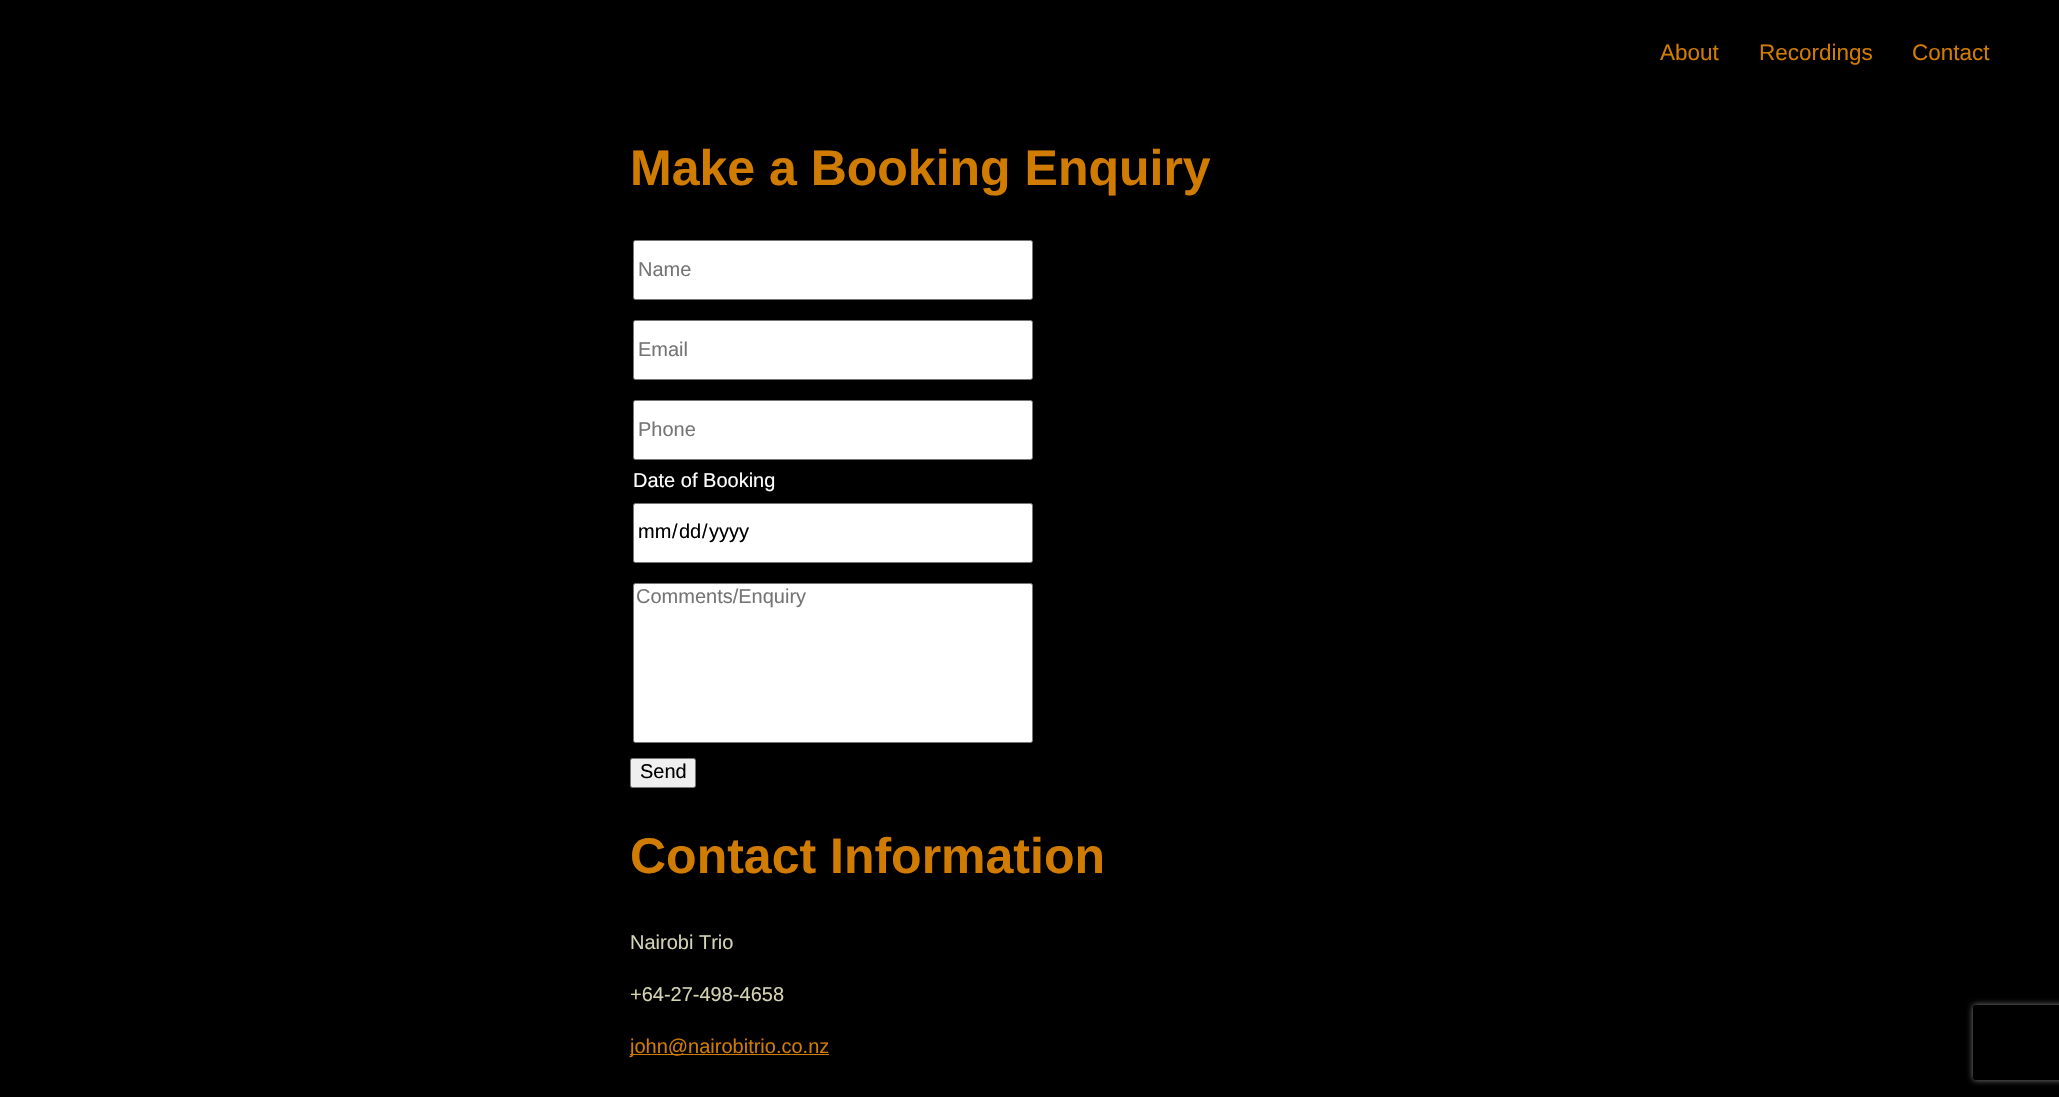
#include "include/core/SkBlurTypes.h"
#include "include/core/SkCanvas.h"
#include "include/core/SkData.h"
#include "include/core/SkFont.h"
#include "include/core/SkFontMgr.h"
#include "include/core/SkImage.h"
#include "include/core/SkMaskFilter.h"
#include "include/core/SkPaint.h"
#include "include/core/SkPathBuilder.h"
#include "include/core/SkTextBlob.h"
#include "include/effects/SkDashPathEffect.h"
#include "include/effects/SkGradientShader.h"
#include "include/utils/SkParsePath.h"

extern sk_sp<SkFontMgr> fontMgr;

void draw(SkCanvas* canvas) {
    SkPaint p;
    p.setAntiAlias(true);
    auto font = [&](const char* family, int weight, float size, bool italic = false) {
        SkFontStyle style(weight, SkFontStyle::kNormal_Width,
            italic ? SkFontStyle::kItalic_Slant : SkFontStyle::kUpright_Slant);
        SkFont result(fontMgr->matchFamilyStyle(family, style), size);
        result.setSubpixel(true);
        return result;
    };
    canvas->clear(0xFF000000);
    auto font1 = font("Liberation Sans", 400, 22.5f);
    p.setColor(0xFFD07B02);
    {
        const struct { const char* s; float x, y; } items[] = {
            {"About", 1660, 60},
            {"Recordings", 1759, 60},
            {"Contact", 1912, 60},
        };
        for (auto [s, x, y] : items) {
            canvas->drawString(s, x, y, font1, p);
        }
    }
    auto font2 = font("Liberation Sans", 700, 50);
    canvas->drawString("Make a Booking Enquiry", 630, 185, font2, p);
    p.setColor(0xFFFFFFFF);
    canvas->drawRoundRect(SkRect::MakeLTRB(633.5f, 240.5f, 1032.5f, 299.5f), 2, 2, p);
    p.setStyle(SkPaint::kStroke_Style);
    p.setStrokeWidth(1);
    p.setColor(0xFF767676);
    canvas->drawRoundRect(SkRect::MakeLTRB(633.5f, 240.5f, 1032.5f, 299.5f), 2, 2, p);
    auto font3 = font("Liberation Sans", 400, 20);
    p.setStyle(SkPaint::kFill_Style);
    p.setColor(0xFF757575);
    canvas->drawString("Name", 638, 276, font3, p);
    p.setColor(0xFFFFFFFF);
    canvas->drawRoundRect(SkRect::MakeLTRB(633.5f, 320.5f, 1032.5f, 379.5f), 2, 2, p);
    p.setStyle(SkPaint::kStroke_Style);
    p.setColor(0xFF767676);
    canvas->drawRoundRect(SkRect::MakeLTRB(633.5f, 320.5f, 1032.5f, 379.5f), 2, 2, p);
    p.setStyle(SkPaint::kFill_Style);
    p.setColor(0xFF757575);
    canvas->drawString("Email", 638, 356, font3, p);
    p.setColor(0xFFFFFFFF);
    canvas->drawRoundRect(SkRect::MakeLTRB(633.5f, 400.5f, 1032.5f, 459.5f), 2, 2, p);
    p.setStyle(SkPaint::kStroke_Style);
    p.setColor(0xFF767676);
    canvas->drawRoundRect(SkRect::MakeLTRB(633.5f, 400.5f, 1032.5f, 459.5f), 2, 2, p);
    p.setStyle(SkPaint::kFill_Style);
    p.setColor(0xFF757575);
    canvas->drawString("Phone", 638, 436, font3, p);
    p.setColor(0xFFFFFFFF);
    canvas->drawString("Date of Booking", 633, 487, font3, p);
    canvas->drawRoundRect(SkRect::MakeLTRB(633.5f, 503.5f, 1032.5f, 562.5f), 2, 2, p);
    p.setStyle(SkPaint::kStroke_Style);
    p.setColor(0xFF767676);
    canvas->drawRoundRect(SkRect::MakeLTRB(633.5f, 503.5f, 1032.5f, 562.5f), 2, 2, p);
    p.setStyle(SkPaint::kFill_Style);
    p.setColor(0xFF000000);
    {
        const struct { const char* s; float x, y; } items[] = {
            {"mm", 638, 538},
            {"/", 672, 538},
            {"dd", 679, 538},
            {"/", 702, 538},
            {"yyyy", 709, 538},
        };
        for (auto [s, x, y] : items) {
            canvas->drawString(s, x, y, font3, p);
        }
    }
    p.setColor(0xFFFFFFFF);
    canvas->drawRoundRect(SkRect::MakeLTRB(633.5f, 583.5f, 1032.5f, 742.5f), 2, 2, p);
    p.setStyle(SkPaint::kStroke_Style);
    p.setColor(0xFF767676);
    canvas->drawRoundRect(SkRect::MakeLTRB(633.5f, 583.5f, 1032.5f, 742.5f), 2, 2, p);
    p.setStyle(SkPaint::kFill_Style);
    p.setColor(0xFF757575);
    canvas->drawString("Comments/Enquiry", 636, 603, font3, p);
    p.setColor(0xFFEFEFEF);
    canvas->drawRoundRect(SkRect::MakeLTRB(630.5f, 758.5f, 695.5f, 787.5f), 2, 2, p);
    p.setStyle(SkPaint::kStroke_Style);
    p.setColor(0xFF767676);
    canvas->drawRoundRect(SkRect::MakeLTRB(630.5f, 758.5f, 695.5f, 787.5f), 2, 2, p);
    p.setStyle(SkPaint::kFill_Style);
    p.setColor(0xFF000000);
    canvas->drawString("Send", 640, 778, font3, p);
    p.setColor(0xFFD07B02);
    canvas->drawString("Contact Information", 630, 873, font2, p);
    p.setColor(0xFFD4D4B2);
    canvas->drawString("Nairobi Trio", 630, 949, font3, p);
    canvas->drawString("+64-27-498-4658", 630, 1001, font3, p);
    p.setColor(0xFFD07B02);
    canvas->drawRect(SkRect::MakeLTRB(630, 1054, 829, 1055), p);
    canvas->drawString("john@nairobitrio.co.nz", 630, 1053, font3, p);
    canvas->save();
    canvas->clipPath(SkPathBuilder(SkPathFillType::kEvenOdd).moveTo(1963, 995).lineTo(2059, 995).lineTo(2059, 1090).lineTo(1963, 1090).close().moveTo(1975.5f, 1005).lineTo(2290.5f, 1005).cubicTo(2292, 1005, 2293, 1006, 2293, 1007.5f).lineTo(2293, 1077.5f).cubicTo(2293, 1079, 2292, 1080, 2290.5f, 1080).lineTo(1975.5f, 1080).cubicTo(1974, 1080, 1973, 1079, 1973, 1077.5f).lineTo(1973, 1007.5f).cubicTo(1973, 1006, 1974, 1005, 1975.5f, 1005).close().detach(), true);
    p.setColor(0xFF808080);
    p.setMaskFilter(SkMaskFilter::MakeBlur(kNormal_SkBlurStyle, 3));
    canvas->drawRoundRect(SkRect::MakeLTRB(1973, 1005, 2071, 1080), 2.5f, 2.5f, p);
    p.setMaskFilter(nullptr);
    canvas->restore();
}
